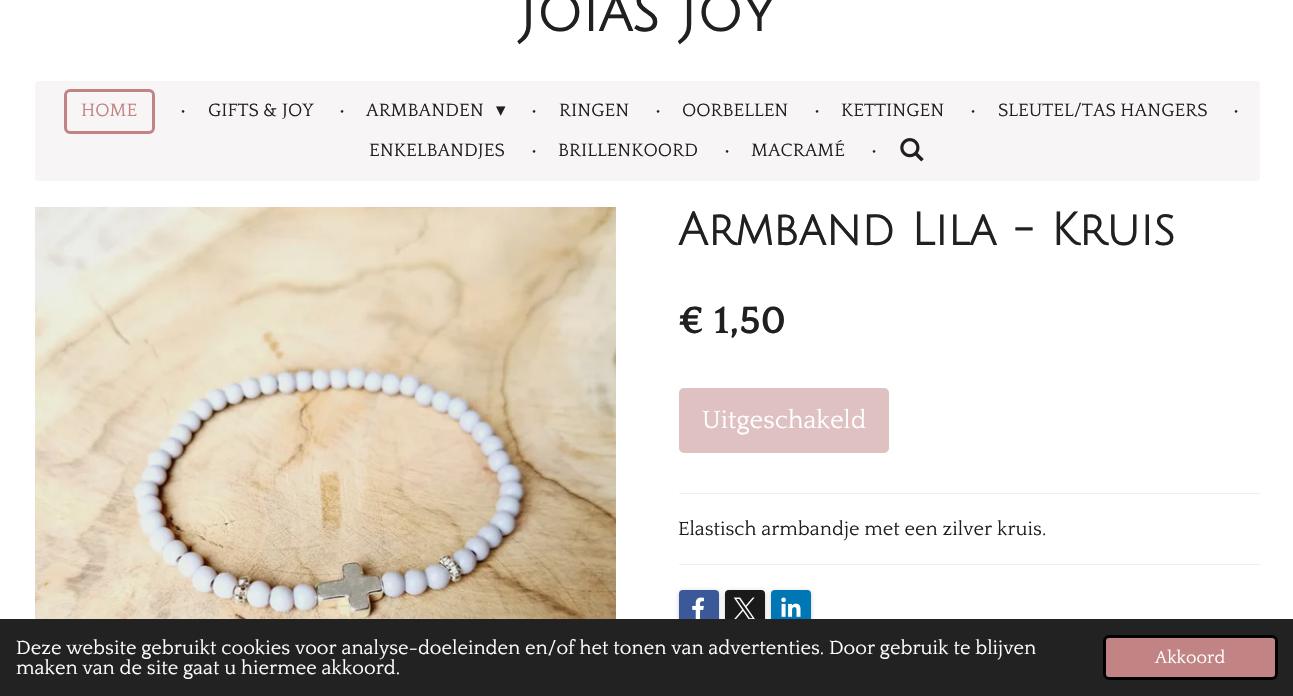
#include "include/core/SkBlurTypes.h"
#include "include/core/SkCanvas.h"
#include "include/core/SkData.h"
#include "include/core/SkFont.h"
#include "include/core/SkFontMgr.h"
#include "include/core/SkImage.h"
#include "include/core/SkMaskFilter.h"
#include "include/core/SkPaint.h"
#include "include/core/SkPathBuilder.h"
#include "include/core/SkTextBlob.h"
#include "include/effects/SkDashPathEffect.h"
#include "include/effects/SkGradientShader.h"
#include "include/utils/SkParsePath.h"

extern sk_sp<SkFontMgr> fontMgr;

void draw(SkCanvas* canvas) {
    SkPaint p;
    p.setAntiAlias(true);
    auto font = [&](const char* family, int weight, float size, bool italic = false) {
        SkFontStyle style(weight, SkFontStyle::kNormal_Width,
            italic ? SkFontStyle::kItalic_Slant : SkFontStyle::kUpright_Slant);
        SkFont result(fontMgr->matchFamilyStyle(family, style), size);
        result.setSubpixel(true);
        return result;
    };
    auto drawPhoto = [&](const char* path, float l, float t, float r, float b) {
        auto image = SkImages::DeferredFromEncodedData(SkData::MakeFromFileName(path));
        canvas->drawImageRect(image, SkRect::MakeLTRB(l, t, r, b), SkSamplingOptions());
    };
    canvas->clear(0xFFFFFFFF);
    auto font1 = font("Julius Sans One", 700, 56.25f);
    p.setColor(0xFF202020);
    canvas->drawString("Jóias Joy", 519, 31, font1, p);
    p.setColor(0xFFF7F5F5);
    canvas->drawRoundRect(SkRect::MakeLTRB(35, 81, 1260, 181), 4, 4, p);
    p.setStyle(SkPaint::kStroke_Style);
    p.setStrokeWidth(3);
    p.setColor(0xFFC18383);
    canvas->drawRoundRect(SkRect::MakeLTRB(65.5f, 90.5f, 153.5f, 132.5f), 4.5f, 4.5f, p);
    auto font2 = font("Quattrocento", 400, 18.75f);
    p.setStyle(SkPaint::kFill_Style);
    canvas->drawString("HOME", 81, 116, font2, p);
    p.setColor(0xFF202020);
    {
        const struct { const char* s; float x, y; } items[] = {
            {"•", 180, 116},
            {"GIFTS & JOY", 208, 116},
            {"•", 339, 116},
            {"ARMBANDEN", 366, 116},
        };
        for (auto [s, x, y] : items) {
            canvas->drawString(s, x, y, font2, p);
        }
    }
    auto font3 = font("DejaVu Sans", 400, 18.75f);
    canvas->drawString("▾", 496, 116, font3, p);
    {
        const struct { const char* s; float x, y; } items[] = {
            {"•", 531, 116},
            {"RINGEN", 559, 116},
            {"•", 655, 116},
            {"OORBELLEN", 682, 116},
            {"•", 814, 116},
            {"KETTINGEN", 841, 116},
            {"•", 970, 116},
            {"SLEUTEL/TAS HANGERS", 998, 116},
            {"•", 1233, 116},
            {"ENKELBANDJES", 369, 156},
            {"•", 531, 156},
            {"BRILLENKOORD", 558, 156},
            {"•", 724, 156},
            {"MACRAMÉ", 751, 156},
            {"•", 871, 156},
        };
        for (auto [s, x, y] : items) {
            canvas->drawString(s, x, y, font2, p);
        }
    }
    drawPhoto("media/1.png", 900, 138, 924, 162);
    drawPhoto("media/2.png", 35, 207, 616, 619);
    auto font4 = font("Julius Sans One", 700, 45);
    canvas->drawString("Armband Lila - Kruis", 678, 245, font4, p);
    auto font5 = font("Quattrocento", 700, 40);
    canvas->drawString("€ 1,50", 678, 333, font5, p);
    p.setColor(0xFFE0C1C1);
    canvas->drawRoundRect(SkRect::MakeLTRB(679, 388, 889, 453), 5, 5, p);
    auto font6 = font("Quattrocento", 400, 26);
    p.setColor(0xFFFFFFFF);
    canvas->drawString("Uitgeschakeld", 702, 428, font6, p);
    p.setColor(0xFFEFEFEF);
    canvas->drawRect(SkRect::MakeLTRB(679, 493, 1260, 494), p);
    auto font7 = font("Quattrocento", 400, 20);
    p.setColor(0xFF202020);
    canvas->drawString("Elastisch armbandje met een zilver kruis.", 678, 535, font7, p);
    p.setColor(0xFFEFEFEF);
    canvas->drawRect(SkRect::MakeLTRB(679, 564, 1260, 565), p);
    p.setColor(0x33000000);
    p.setMaskFilter(SkMaskFilter::MakeBlur(kNormal_SkBlurStyle, 2));
    canvas->drawRoundRect(SkRect::MakeLTRB(679, 591, 719, 631), 4, 4, p);
    p.setMaskFilter(nullptr);
    p.setColor(0xFF3B5998);
    canvas->drawRoundRect(SkRect::MakeLTRB(679, 590, 719, 630), 4, 4, p);
    drawPhoto("media/3.png", 692, 597, 704, 619);
    p.setColor(0x33000000);
    p.setMaskFilter(SkMaskFilter::MakeBlur(kNormal_SkBlurStyle, 2));
    canvas->drawRoundRect(SkRect::MakeLTRB(725, 591, 765, 631), 4, 4, p);
    p.setMaskFilter(nullptr);
    p.setColor(0xFF1A1A1A);
    canvas->drawRoundRect(SkRect::MakeLTRB(725, 590, 765, 630), 4, 4, p);
    drawPhoto("media/4.png", 733, 597, 755, 619);
    p.setColor(0x33000000);
    p.setMaskFilter(SkMaskFilter::MakeBlur(kNormal_SkBlurStyle, 2));
    canvas->drawRoundRect(SkRect::MakeLTRB(771, 591, 811, 631), 4, 4, p);
    p.setMaskFilter(nullptr);
    p.setColor(0xFF0077B5);
    canvas->drawRoundRect(SkRect::MakeLTRB(771, 590, 811, 630), 4, 4, p);
    drawPhoto("media/5.png", 781, 597, 801, 617);
    p.setColor(0xFF222222);
    canvas->drawRect(SkRect::MakeLTRB(0, 619, 1293, 696), p);
    p.setColor(0xFFFFFFFF);
    canvas->drawString("Deze website gebruikt cookies voor analyse-doeleinden en/of het tonen van advertenties. Door gebruik te blijven", 16, 654, font7, p);
    canvas->drawString("maken van de site gaat u hiermee akkoord.", 16, 674, font7, p);
    p.setColor(0xFFC18383);
    canvas->drawRoundRect(SkRect::MakeLTRB(1104.5f, 636.5f, 1276.5f, 678.5f), 4.5f, 4.5f, p);
    p.setStyle(SkPaint::kStroke_Style);
    p.setColor(0xFF000000);
    canvas->drawRoundRect(SkRect::MakeLTRB(1104.5f, 636.5f, 1276.5f, 678.5f), 4.5f, 4.5f, p);
    auto font8 = font("Quattrocento", 400, 18);
    p.setStyle(SkPaint::kFill_Style);
    p.setColor(0xFFFFFFFF);
    canvas->drawString("Akkoord", 1155, 663, font8, p);
}
